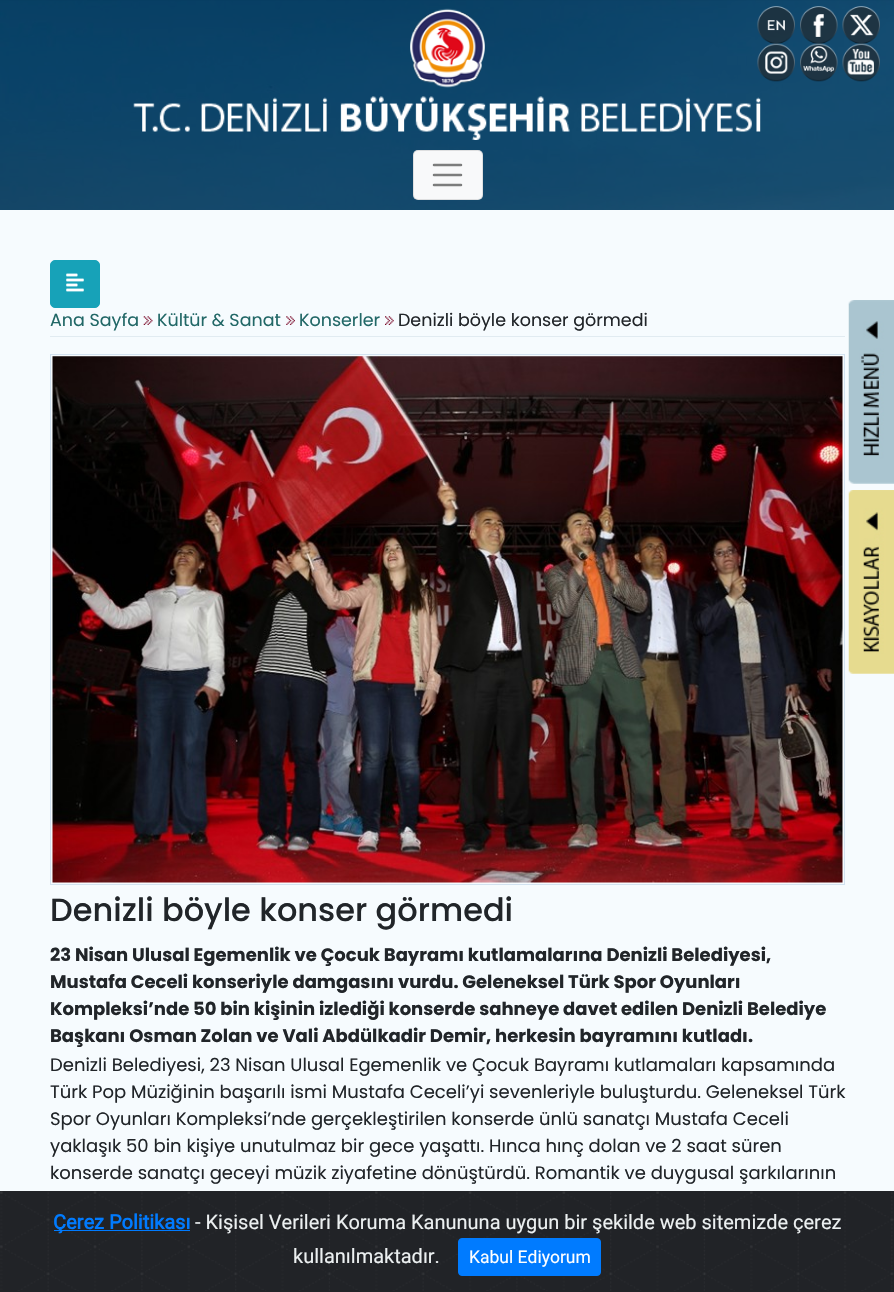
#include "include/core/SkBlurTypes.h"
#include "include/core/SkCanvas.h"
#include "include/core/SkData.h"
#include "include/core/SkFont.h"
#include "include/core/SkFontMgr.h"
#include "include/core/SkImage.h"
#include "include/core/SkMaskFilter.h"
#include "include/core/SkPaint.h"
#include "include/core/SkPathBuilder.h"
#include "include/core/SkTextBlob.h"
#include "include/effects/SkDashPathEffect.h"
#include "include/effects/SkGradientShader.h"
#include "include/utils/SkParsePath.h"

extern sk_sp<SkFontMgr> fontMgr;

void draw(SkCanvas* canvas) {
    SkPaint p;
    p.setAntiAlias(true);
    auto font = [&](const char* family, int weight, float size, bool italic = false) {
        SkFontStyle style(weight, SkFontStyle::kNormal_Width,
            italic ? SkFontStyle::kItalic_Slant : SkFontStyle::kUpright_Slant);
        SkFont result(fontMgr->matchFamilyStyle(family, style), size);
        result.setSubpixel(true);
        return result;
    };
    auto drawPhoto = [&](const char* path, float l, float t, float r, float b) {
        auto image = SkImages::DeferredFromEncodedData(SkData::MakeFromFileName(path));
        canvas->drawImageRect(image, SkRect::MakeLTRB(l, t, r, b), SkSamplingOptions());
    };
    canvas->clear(0xFFFFFFFF);
    drawPhoto("media/1.png", 0, 0, 894, 210);
    p.setColor(0xB8003A63);
    canvas->drawRect(SkRect::MakeLTRB(0, 0, 894, 210), p);
    drawPhoto("media/2.png", 410, 8, 485, 88);
    drawPhoto("media/3.png", 757, 6, 795, 44);
    drawPhoto("media/4.png", 800, 6, 838, 44);
    drawPhoto("media/5.png", 842, 6, 880, 44);
    drawPhoto("media/6.png", 757, 43, 795, 82);
    drawPhoto("media/7.png", 800, 43, 838, 82);
    drawPhoto("media/8.png", 842, 43, 880, 82);
    drawPhoto("media/9.png", 133, 96, 761, 140);
    p.setColor(0xFFF8F9FA);
    canvas->drawRoundRect(SkRect::MakeLTRB(413, 150, 483, 200), 5, 5, p);
    p.setStyle(SkPaint::kStroke_Style);
    p.setStrokeWidth(1);
    p.setColor(0x1A000000);
    canvas->drawRoundRect(SkRect::MakeLTRB(413.5f, 150.5f, 482.5f, 199.5f), 4.5f, 4.5f, p);
    p.setStrokeWidth(2.5f);
    p.setStrokeCap(SkPaint::kRound_Cap);
    p.setColor(0xFF7C7D7D);
    canvas->drawPath(SkPathBuilder().moveTo(434, 165).lineTo(461, 165).moveTo(434, 175).lineTo(461, 175).moveTo(434, 185).lineTo(461, 185).detach(), p);
    p.setStyle(SkPaint::kFill_Style);
    p.setColor(0xFFF6FBFE);
    canvas->drawRect(SkRect::MakeLTRB(0, 210, 894, 1191), p);
    p.setColor(0xFF17A2B8);
    canvas->drawRoundRect(SkRect::MakeLTRB(50.5f, 260.5f, 99.5f, 307.5f), 4.5f, 4.5f, p);
    p.setStyle(SkPaint::kStroke_Style);
    p.setStrokeWidth(1);
    p.setStrokeCap(SkPaint::kButt_Cap);
    canvas->drawRoundRect(SkRect::MakeLTRB(50.5f, 260.5f, 99.5f, 307.5f), 4.5f, 4.5f, p);
    drawPhoto("media/10.png", 66, 273, 84, 292);
    auto font1 = font("Poppins", 400, 17.5f);
    p.setStyle(SkPaint::kFill_Style);
    p.setColor(0xFF226867);
    canvas->drawString("Ana Sayfa", 50, 326, font1, p);
    drawPhoto("media/11.png", 143, 316, 153, 325);
    canvas->drawString("Kültür & Sanat", 157, 326, font1, p);
    drawPhoto("media/12.png", 286, 316, 295, 325);
    canvas->drawString("Konserler", 299, 326, font1, p);
    drawPhoto("media/13.png", 385, 316, 394, 325);
    p.setColor(0xFF212529);
    canvas->drawString("Denizli böyle konser görmedi", 398, 326, font1, p);
    p.setColor(0xFFE1EBF1);
    canvas->drawRect(SkRect::MakeLTRB(50, 336, 845, 337), p);
    p.setStyle(SkPaint::kStroke_Style);
    p.setColor(0xFFD2E2F0);
    canvas->drawRect(SkRect::MakeLTRB(50.5f, 354.5f, 844.5f, 884.5f), p);
    drawPhoto("media/14.png", 52, 356, 843, 883);
    auto font2 = font("Poppins", 500, 32);
    p.setStyle(SkPaint::kFill_Style);
    p.setColor(0xFF212529);
    canvas->drawString("Denizli böyle konser görmedi", 50, 921, font2, p);
    auto font3 = font("Poppins", 700, 18);
    {
        const struct { const char* s; float x, y; } items[] = {
            {"23 Nisan Ulusal Egemenlik ve Çocuk Bayramı kutlamalarına Denizli Belediyesi,", 50, 961},
            {"Mustafa Ceceli konseriyle damgasını vurdu. Geleneksel Türk Spor Oyunları", 50, 988},
            {"Kompleksi’nde 50 bin kişinin izlediği konserde sahneye davet edilen Denizli Belediye", 50, 1015},
            {"Başkanı Osman Zolan ve Vali Abdülkadir Demir, herkesin bayramını kutladı.", 50, 1042},
        };
        for (auto [s, x, y] : items) {
            canvas->drawString(s, x, y, font3, p);
        }
    }
    auto font4 = font("Poppins", 400, 18);
    {
        const struct { const char* s; float x, y; } items[] = {
            {"Denizli Belediyesi, 23 Nisan Ulusal Egemenlik ve Çocuk Bayramı kutlamaları kapsamında", 50, 1071},
            {"Türk Pop Müziğinin başarılı ismi Mustafa Ceceli’yi sevenleriyle buluşturdu. Geleneksel Türk", 50, 1098},
            {"Spor Oyunları Kompleksi’nde gerçekleştirilen konserde ünlü sanatçı Mustafa Ceceli", 50, 1125},
            {"yaklaşık 50 bin kişiye unutulmaz bir gece yaşattı. Hınca hınç dolan ve 2 saat süren", 50, 1152},
            {"konserde sanatçı geceyi müzik ziyafetine dönüştürdü. Romantik ve duygusal şarkılarının", 50, 1179},
        };
        for (auto [s, x, y] : items) {
            canvas->drawString(s, x, y, font4, p);
        }
    }
    drawPhoto("media/15.png", 848, 300, 894, 484);
    drawPhoto("media/16.png", 848, 490, 894, 674);
    p.setColor(0xFF212327);
    canvas->drawRect(SkRect::MakeLTRB(0, 1191, 894, 1292), p);
    drawPhoto("media/17.png", 0, 1191, 894, 1291);
    p.setColor(0xFF007BFF);
    canvas->drawRect(SkRect::MakeLTRB(54, 1230, 190, 1231), p);
    auto font5 = font("Roboto", 700, 20);
    canvas->drawString("Çerez Politikası", 53, 1229, font5, p);
    auto font6 = font("Roboto", 400, 20);
    p.setColor(0xFFECF0F1);
    canvas->drawString("- Kişisel Verileri Koruma Kanununa uygun bir şekilde web sitemizde çerez", 195, 1229, font6, p);
    canvas->drawString("kullanılmaktadır.", 293, 1263, font6, p);
    p.setColor(0xFF007BFF);
    canvas->drawRoundRect(SkRect::MakeLTRB(458.5f, 1238.5f, 600.5f, 1275.5f), 3.5f, 3.5f, p);
    p.setStyle(SkPaint::kStroke_Style);
    canvas->drawRoundRect(SkRect::MakeLTRB(458.5f, 1238.5f, 600.5f, 1275.5f), 3.5f, 3.5f, p);
    auto font7 = font("Roboto", 400, 17.5f);
    p.setStyle(SkPaint::kFill_Style);
    p.setColor(0xFFFFFFFF);
    canvas->drawString("Kabul Ediyorum", 469, 1263, font7, p);
}
